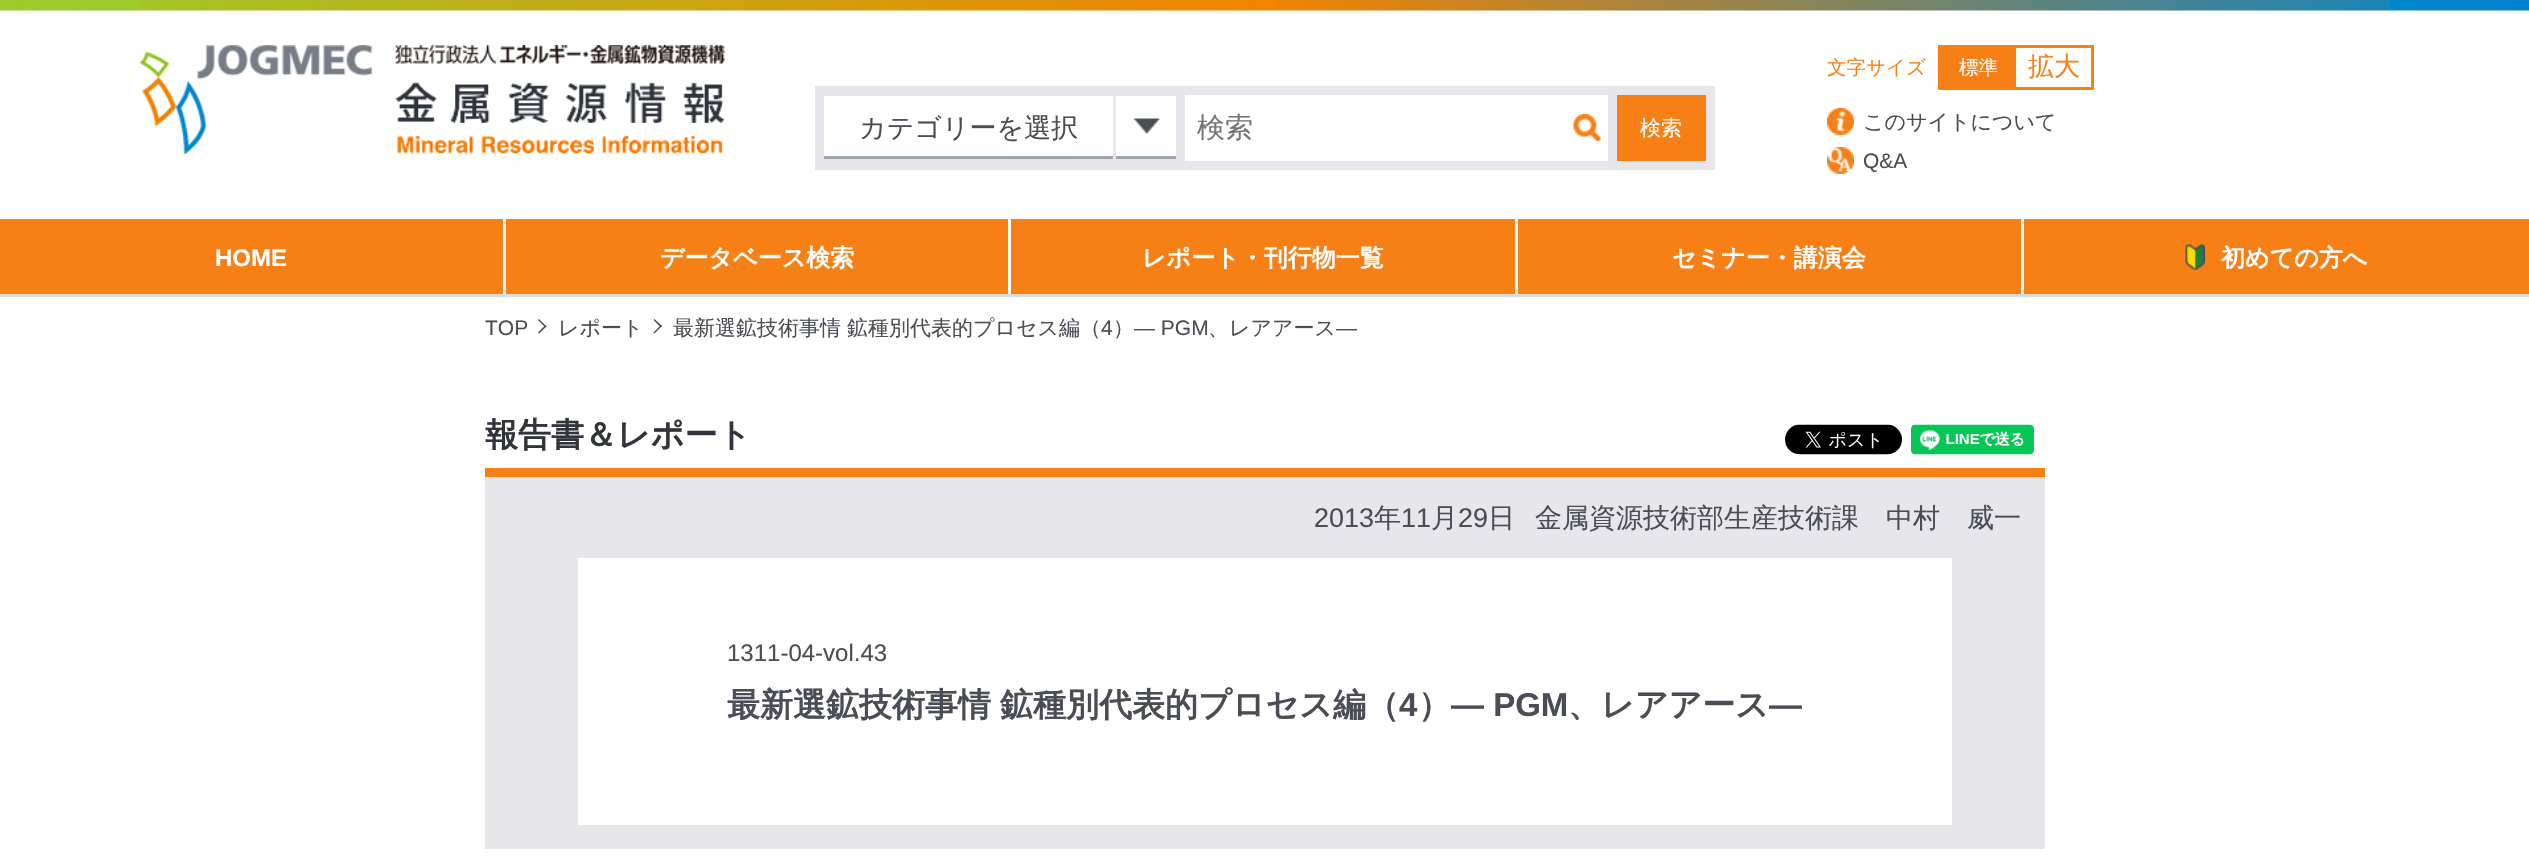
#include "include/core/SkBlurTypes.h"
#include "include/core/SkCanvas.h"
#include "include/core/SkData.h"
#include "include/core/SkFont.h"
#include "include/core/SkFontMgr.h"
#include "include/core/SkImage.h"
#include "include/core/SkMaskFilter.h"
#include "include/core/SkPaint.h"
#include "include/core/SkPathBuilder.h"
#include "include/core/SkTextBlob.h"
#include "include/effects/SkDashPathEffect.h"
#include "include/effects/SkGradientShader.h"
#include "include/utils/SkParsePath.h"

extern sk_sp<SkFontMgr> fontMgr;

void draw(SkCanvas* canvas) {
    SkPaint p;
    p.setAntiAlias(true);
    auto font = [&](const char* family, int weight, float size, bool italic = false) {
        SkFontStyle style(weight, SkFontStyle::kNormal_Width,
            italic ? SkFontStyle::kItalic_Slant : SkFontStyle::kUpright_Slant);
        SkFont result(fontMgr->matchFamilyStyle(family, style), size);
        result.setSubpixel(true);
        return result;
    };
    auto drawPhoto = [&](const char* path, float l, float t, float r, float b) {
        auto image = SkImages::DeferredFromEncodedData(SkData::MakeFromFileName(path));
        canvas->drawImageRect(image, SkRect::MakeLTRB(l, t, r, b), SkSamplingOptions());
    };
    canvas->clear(0xFFFFFFFF);
    drawPhoto("media/1.png", 0, 0, 2529, 11);
    {
        const struct { float l, t, r, b; SkColor color; } items[] = {
            {0, 294, 2529, 297, 0xFFDADBDB},
            {19, 0, 140, 9, 0xFF9BCC2B},
            {2390, 0, 2518, 9, 0xFF0084CE},
        };
        for (auto [l, t, r, b, color] : items) {
            p.setColor(color);
            canvas->drawRect(SkRect::MakeLTRB(l, t, r, b), p);
        }
    }
    drawPhoto("media/2.png", 139, 45, 725, 155);
    {
        const struct { float l, t, r, b; SkColor color; } items[] = {
            {815, 86, 1715, 170, 0xFFE7E7EB},
            {824, 96, 1113, 156, 0xFFFFFFFF},
            {824, 156, 1113, 159, 0xFF9FA3AB},
        };
        for (auto [l, t, r, b, color] : items) {
            p.setColor(color);
            canvas->drawRect(SkRect::MakeLTRB(l, t, r, b), p);
        }
    }
    auto font1 = font("WenQuanYi Zen Hei", 500, 27);
    p.setColor(0xFF4A4D55);
    canvas->drawString("カテゴリーを選択", 859, 137, font1, p);
    p.setColor(0xFFFFFFFF);
    canvas->drawRect(SkRect::MakeLTRB(1116, 96, 1176, 156), p);
    drawPhoto("media/3.png", 1134, 118, 1160, 134);
    p.setColor(0xFF9FA3AB);
    canvas->drawRect(SkRect::MakeLTRB(1116, 156, 1176, 159), p);
    p.setColor(0xFFFFFFFF);
    canvas->drawRect(SkRect::MakeLTRB(1185, 95, 1608, 161), p);
    drawPhoto("media/4.png", 1573, 114, 1601, 141);
    auto font2 = font("WenQuanYi Zen Hei", 500, 28);
    p.setColor(0xFF757575);
    canvas->drawString("検索", 1197, 137, font2, p);
    p.setColor(0xFFF68016);
    canvas->drawRect(SkRect::MakeLTRB(1617, 95, 1706, 161), p);
    auto font3 = font("WenQuanYi Zen Hei", 500, 21);
    p.setColor(0xFFFFFFFF);
    canvas->drawString("検索", 1640, 135, font3, p);
    auto font4 = font("WenQuanYi Zen Hei", 500, 19.5f);
    p.setColor(0xFFF68016);
    canvas->drawString("文字サイズ", 1827, 74, font4, p);
    p.setStyle(SkPaint::kStroke_Style);
    p.setStrokeWidth(3);
    canvas->drawRect(SkRect::MakeLTRB(1939.5f, 46.5f, 2092.5f, 88.5f), p);
    p.setStyle(SkPaint::kFill_Style);
    canvas->drawRect(SkRect::MakeLTRB(1941, 48, 2016, 87), p);
    p.setColor(0xFFFFFFFF);
    canvas->drawString("標準", 1959, 74, font4, p);
    auto font5 = font("WenQuanYi Zen Hei", 500, 26);
    p.setColor(0xFFF68016);
    canvas->drawString("拡大", 2028, 75, font5, p);
    drawPhoto("media/5.png", 1827, 108, 1854, 135);
    p.setColor(0xFF4A4D55);
    canvas->drawString("このサイトについて", 1863, 129, font3, p);
    drawPhoto("media/6.png", 1827, 147, 1854, 174);
    auto font6 = font("Liberation Sans", 400, 21);
    canvas->drawString("Q&A", 1863, 168, font6, p);
    p.setColor(0xFFF68016);
    canvas->drawRect(SkRect::MakeLTRB(0, 219, 503, 294), p);
    auto font7 = font("Liberation Sans", 700, 24);
    p.setColor(0xFFFFFFFF);
    canvas->drawString("HOME", 215, 266, font7, p);
    p.setColor(0xFFF68016);
    canvas->drawRect(SkRect::MakeLTRB(506, 219, 1008, 294), p);
    auto font8 = font("WenQuanYi Zen Hei", 700, 24);
    p.setColor(0xFFFFFFFF);
    canvas->drawString("データベース検索", 660, 266, font8, p);
    p.setColor(0xFFF68016);
    canvas->drawRect(SkRect::MakeLTRB(1011, 219, 1515, 294), p);
    p.setColor(0xFFFFFFFF);
    canvas->drawString("レポート・刊行物一覧", 1142, 266, font8, p);
    p.setColor(0xFFF68016);
    canvas->drawRect(SkRect::MakeLTRB(1518, 219, 2021, 294), p);
    p.setColor(0xFFFFFFFF);
    canvas->drawString("セミナー・講演会", 1672, 266, font8, p);
    p.setColor(0xFFF68016);
    canvas->drawRect(SkRect::MakeLTRB(2024, 219, 2529, 294), p);
    drawPhoto("media/7.png", 2185, 244, 2205, 270);
    p.setColor(0xFFFFFFFF);
    canvas->drawString("初めての方へ", 2221, 266, font8, p);
    p.setColor(0xFF4A4D55);
    canvas->drawString("TOP", 485, 335, font6, p);
    canvas->drawPath(SkPathBuilder().moveTo(539, 319).lineTo(546.5f, 326.5f).lineTo(545.5f, 327.5f).lineTo(538, 320).close().detach(), p);
    canvas->drawPath(SkPathBuilder().moveTo(545.5f, 325).lineTo(546.5f, 326.5f).lineTo(539, 333.5f).lineTo(538, 332.5f).close().detach(), p);
    canvas->drawString("レポート", 558, 335, font3, p);
    canvas->drawPath(SkPathBuilder().moveTo(654.5f, 319).lineTo(662, 326).lineTo(661, 327.5f).lineTo(653.5f, 320).close().detach(), p);
    canvas->drawPath(SkPathBuilder().moveTo(661, 325).lineTo(662, 326).lineTo(654.5f, 333.5f).lineTo(653.5f, 332.5f).close().detach(), p);
    canvas->drawString("最新選鉱技術事情", 673, 335, font3, p);
    canvas->drawString("鉱種別代表的プロセス編（", 847, 335, font3, p);
    canvas->drawString("4", 1101, 335, font6, p);
    canvas->drawString("）", 1113, 335, font3, p);
    canvas->drawString("― PGM", 1134, 335, font6, p);
    canvas->drawString("、レアアース", 1208, 335, font3, p);
    canvas->drawString("―", 1336, 335, font6, p);
    p.setColor(0xFFF68016);
    canvas->drawRect(SkRect::MakeLTRB(485, 468, 2045, 477), p);
    auto font9 = font("WenQuanYi Zen Hei", 700, 33);
    p.setColor(0xFF31343B);
    canvas->drawString("報告書＆レポート", 485, 446, font9, p);
    drawPhoto("media/8.png", 1785, 424, 1902, 455);
    drawPhoto("media/9.png", 1911, 424, 2034, 455);
    p.setColor(0xFFE7E7EB);
    canvas->drawRect(SkRect::MakeLTRB(485, 477, 2045, 849), p);
    auto font10 = font("Liberation Sans", 400, 27);
    p.setColor(0xFF4A4D55);
    canvas->drawString("2013", 1314, 527, font10, p);
    canvas->drawString("年", 1374, 527, font1, p);
    canvas->drawString("11", 1401, 527, font10, p);
    canvas->drawString("月", 1431, 527, font1, p);
    canvas->drawString("29", 1458, 527, font10, p);
    canvas->drawString("日", 1488, 527, font1, p);
    canvas->drawString("金属資源技術部生産技術課　中村　威一", 1535, 527, font1, p);
    p.setColor(0xFFFFFFFF);
    canvas->drawRect(SkRect::MakeLTRB(578, 558, 1952, 825), p);
    auto font11 = font("Liberation Sans", 400, 24);
    p.setColor(0xFF4A4D55);
    canvas->drawString("1311-04-vol.43", 727, 661, font11, p);
    canvas->drawString("最新選鉱技術事情", 727, 716, font9, p);
    canvas->drawString("鉱種別代表的プロセス編（", 1000, 716, font9, p);
    auto font12 = font("Liberation Sans", 700, 33);
    canvas->drawString("4", 1399, 716, font12, p);
    canvas->drawString("）", 1418, 716, font9, p);
    canvas->drawString("― PGM", 1451, 716, font12, p);
    canvas->drawString("、レアアース", 1568, 716, font9, p);
    canvas->drawString("―", 1769, 716, font12, p);
}
